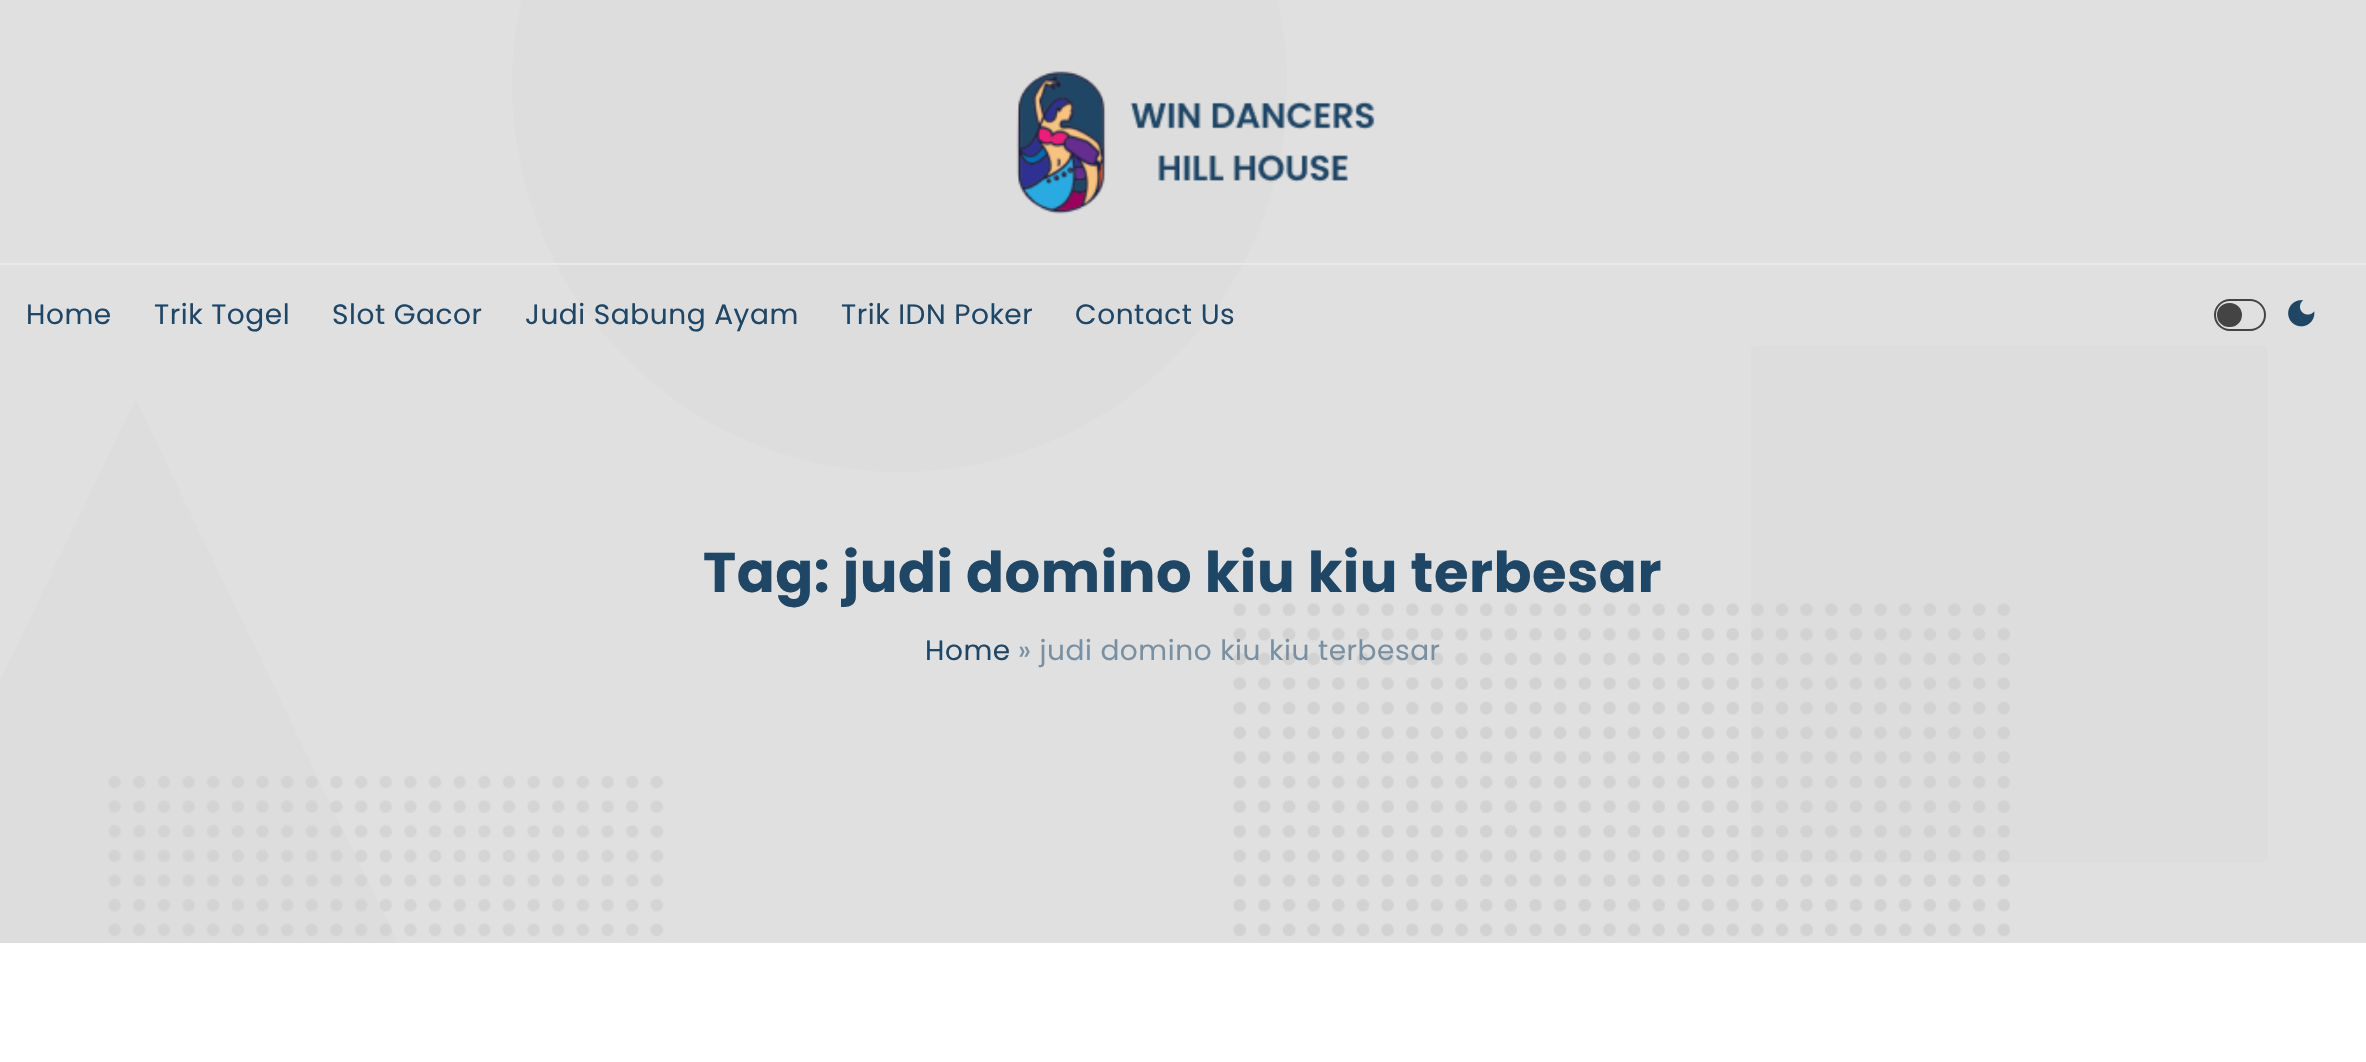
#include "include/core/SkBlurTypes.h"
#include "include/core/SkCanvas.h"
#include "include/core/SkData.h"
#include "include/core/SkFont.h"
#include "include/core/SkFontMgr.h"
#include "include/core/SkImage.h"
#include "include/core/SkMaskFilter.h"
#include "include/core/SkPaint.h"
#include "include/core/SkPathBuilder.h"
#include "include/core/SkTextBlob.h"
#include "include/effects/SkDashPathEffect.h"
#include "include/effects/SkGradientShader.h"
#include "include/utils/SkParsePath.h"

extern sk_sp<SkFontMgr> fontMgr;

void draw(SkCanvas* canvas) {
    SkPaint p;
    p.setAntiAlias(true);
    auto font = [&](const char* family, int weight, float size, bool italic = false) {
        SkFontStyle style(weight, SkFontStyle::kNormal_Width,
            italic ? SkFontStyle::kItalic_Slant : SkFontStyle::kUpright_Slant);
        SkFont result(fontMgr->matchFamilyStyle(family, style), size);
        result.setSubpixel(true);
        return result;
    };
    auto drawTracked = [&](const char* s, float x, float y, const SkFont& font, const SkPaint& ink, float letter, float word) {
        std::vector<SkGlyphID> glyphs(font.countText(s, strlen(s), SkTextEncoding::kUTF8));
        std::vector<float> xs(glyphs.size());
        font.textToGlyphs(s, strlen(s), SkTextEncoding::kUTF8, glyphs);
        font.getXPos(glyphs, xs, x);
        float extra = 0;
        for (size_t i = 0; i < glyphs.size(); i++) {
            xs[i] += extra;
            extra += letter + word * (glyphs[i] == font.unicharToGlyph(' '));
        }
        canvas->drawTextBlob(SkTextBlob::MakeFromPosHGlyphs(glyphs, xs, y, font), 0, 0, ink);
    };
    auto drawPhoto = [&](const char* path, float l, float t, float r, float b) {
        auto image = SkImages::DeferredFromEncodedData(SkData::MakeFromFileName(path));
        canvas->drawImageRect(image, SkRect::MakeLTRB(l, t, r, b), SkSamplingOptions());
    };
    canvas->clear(0xFFFFFFFF);
    drawPhoto("media/1.png", 0, 0, 2366, 943);
    drawPhoto("media/2.png", 1016, 71, 1375, 214);
    p.setColor(0xFFEAEAEA);
    canvas->drawRect(SkRect::MakeLTRB(0, 263, 2366, 265), p);
    auto font1 = font("Poppins", 400, 28);
    p.setColor(0xFF204666);
    {
        const struct { const char* s; float x, y; } items[] = {
            {"Home", 26, 324},
            {"Trik Togel", 154, 324},
            {"Slot Gacor", 332, 324},
            {"Judi Sabung Ayam", 525, 324},
            {"Trik IDN Poker", 841, 324},
            {"Contact Us", 1075, 324},
        };
        for (auto [s, x, y] : items) {
            drawTracked(s, x, y, font1, p, 0.55f, 0);
        }
    }
    p.setStyle(SkPaint::kStroke_Style);
    p.setStrokeWidth(2);
    p.setColor(0xFF444444);
    canvas->drawRoundRect(SkRect::MakeLTRB(2215, 300, 2265, 330), 15, 15, p);
    drawPhoto("media/3.png", 2288, 300, 2315, 327);
    p.setStyle(SkPaint::kFill_Style);
    canvas->drawRoundRect(SkRect::MakeLTRB(2218, 304, 2241, 326), 11, 11, p);
    p.setStyle(SkPaint::kStroke_Style);
    canvas->drawRoundRect(SkRect::MakeLTRB(2218, 304, 2241, 326), 11, 11, p);
    auto font2 = font("Poppins", 700, 56);
    p.setStyle(SkPaint::kFill_Style);
    p.setColor(0xFF204666);
    drawTracked("Tag: judi domino kiu kiu terbesar", 703, 592, font2, p, 0.55f, 0);
    drawTracked("Home", 925, 660, font1, p, 0.55f, 0);
    p.setColor(0xFF7990A3);
    drawTracked("» judi domino kiu kiu terbesar", 1018, 660, font1, p, 0.55f, 0);
}
